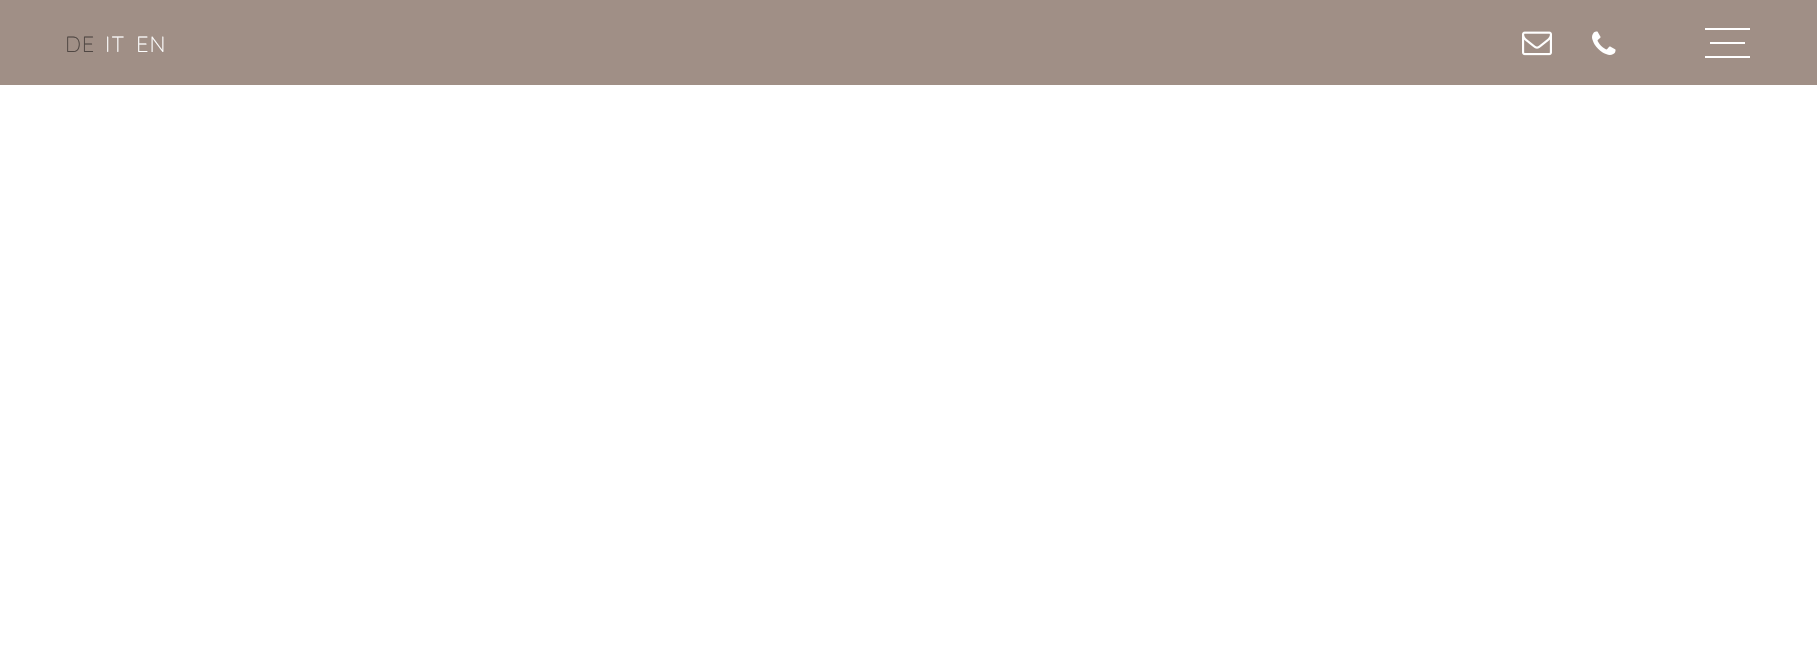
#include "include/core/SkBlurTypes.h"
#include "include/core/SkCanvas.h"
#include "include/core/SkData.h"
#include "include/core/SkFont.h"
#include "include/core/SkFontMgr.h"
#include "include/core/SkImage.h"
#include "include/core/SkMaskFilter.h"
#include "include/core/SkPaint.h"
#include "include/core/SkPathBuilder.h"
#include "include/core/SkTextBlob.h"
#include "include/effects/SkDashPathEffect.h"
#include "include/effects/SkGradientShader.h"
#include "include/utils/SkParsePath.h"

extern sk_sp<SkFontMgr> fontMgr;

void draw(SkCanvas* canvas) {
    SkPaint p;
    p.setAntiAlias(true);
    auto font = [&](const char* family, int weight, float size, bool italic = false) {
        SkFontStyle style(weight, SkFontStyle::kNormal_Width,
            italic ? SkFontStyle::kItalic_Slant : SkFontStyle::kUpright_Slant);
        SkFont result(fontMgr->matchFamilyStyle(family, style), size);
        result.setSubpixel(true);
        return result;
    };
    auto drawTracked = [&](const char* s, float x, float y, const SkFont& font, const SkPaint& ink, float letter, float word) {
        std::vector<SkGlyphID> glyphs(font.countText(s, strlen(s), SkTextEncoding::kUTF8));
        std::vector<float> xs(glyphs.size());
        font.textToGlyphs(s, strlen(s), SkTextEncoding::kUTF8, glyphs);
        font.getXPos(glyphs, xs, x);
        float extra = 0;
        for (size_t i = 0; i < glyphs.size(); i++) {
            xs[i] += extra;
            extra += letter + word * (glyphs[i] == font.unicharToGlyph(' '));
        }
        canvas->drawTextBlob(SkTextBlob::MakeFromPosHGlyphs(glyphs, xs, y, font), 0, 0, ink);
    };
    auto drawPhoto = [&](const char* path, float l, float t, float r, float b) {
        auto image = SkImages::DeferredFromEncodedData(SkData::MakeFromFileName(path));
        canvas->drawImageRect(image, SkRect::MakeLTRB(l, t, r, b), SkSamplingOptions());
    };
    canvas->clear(0xFFFFFFFF);
    p.setColor(0xFFA08F86);
    canvas->drawRect(SkRect::MakeLTRB(0, 0, 1817, 85), p);
    auto font1 = font("Quicksand", 300, 22);
    p.setColor(0xFF504743);
    drawTracked("DE", 65, 52, font1, p, 1, 0);
    p.setColor(0xFFFFFFFF);
    drawTracked("IT", 105, 52, font1, p, 1, 0);
    drawTracked("EN", 136, 52, font1, p, 1, 0);
    drawPhoto("media/1.png", 1522, 31, 1552, 56);
    drawPhoto("media/2.png", 1592, 31, 1616, 55);
    {
        const struct { float l, t, r, b; SkColor color; } items[] = {
            {1705, 28, 1750, 30, 0xFFFFFFFF},
            {1710, 42, 1745, 44, 0xFFFFFFFF},
            {1705, 56, 1750, 58, 0xFFFFFFFF},
        };
        for (auto [l, t, r, b, color] : items) {
            p.setColor(color);
            canvas->drawRect(SkRect::MakeLTRB(l, t, r, b), p);
        }
    }
}
